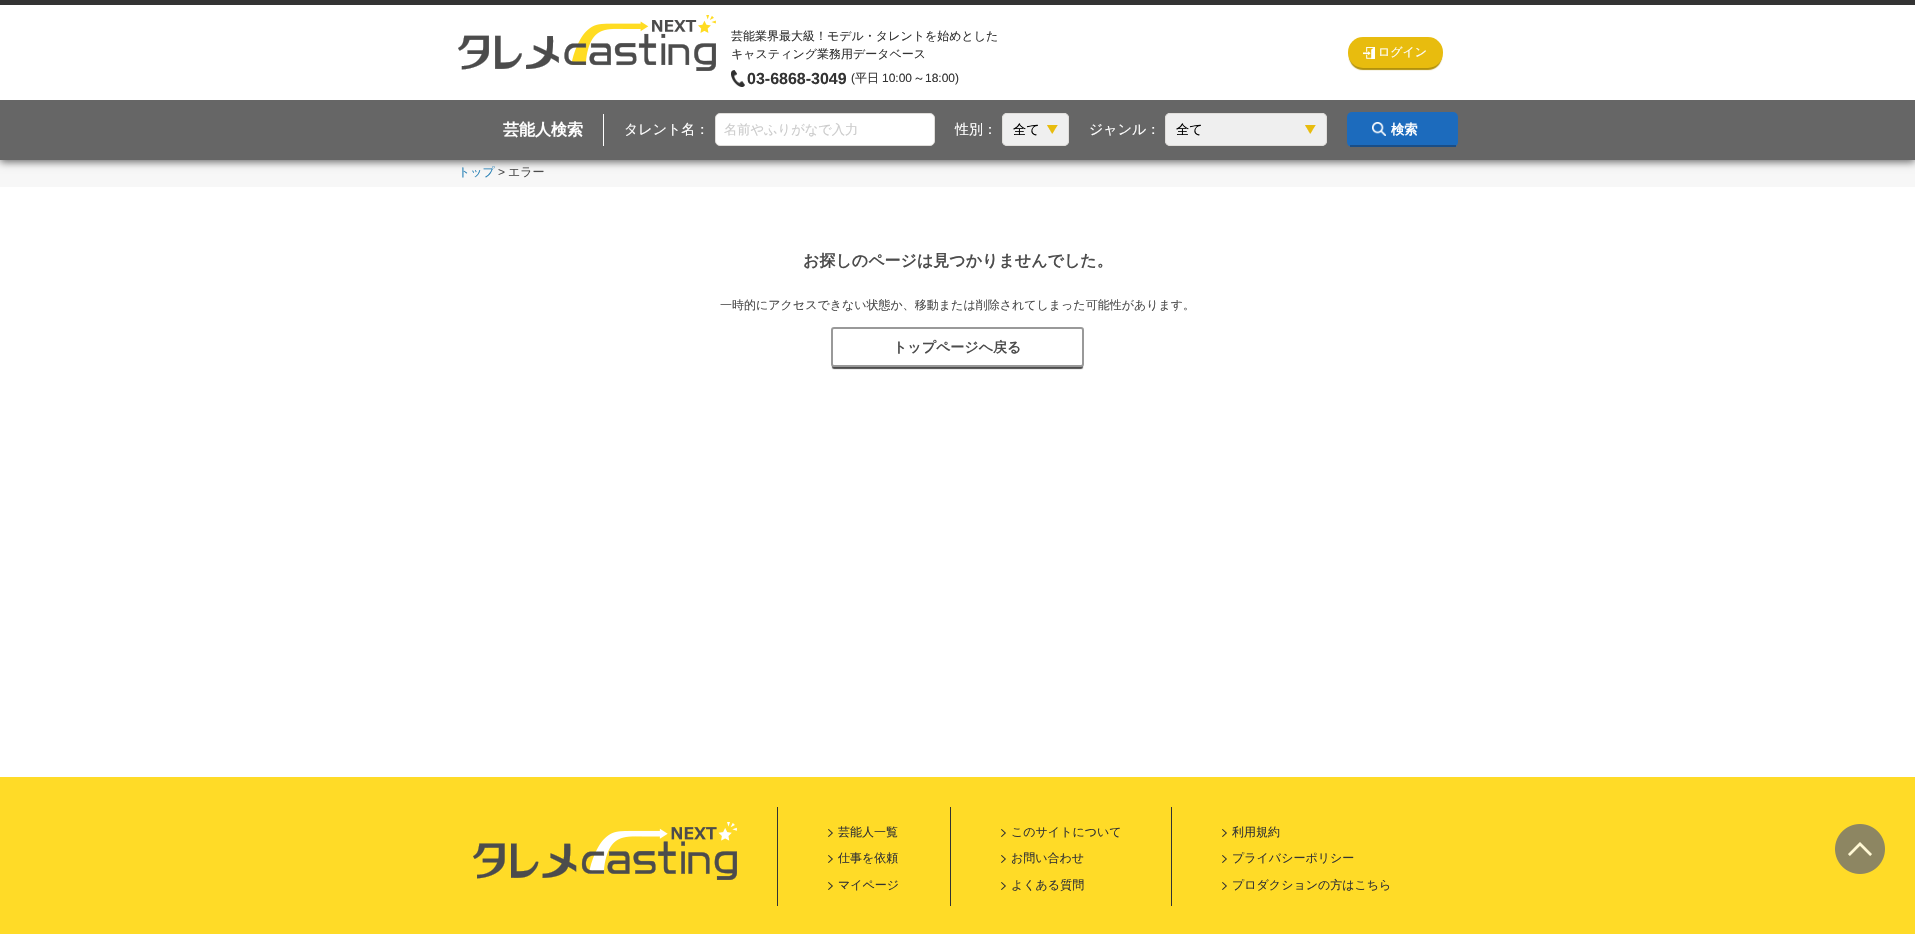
#include "include/core/SkBlurTypes.h"
#include "include/core/SkCanvas.h"
#include "include/core/SkData.h"
#include "include/core/SkFont.h"
#include "include/core/SkFontMgr.h"
#include "include/core/SkImage.h"
#include "include/core/SkMaskFilter.h"
#include "include/core/SkPaint.h"
#include "include/core/SkPathBuilder.h"
#include "include/core/SkTextBlob.h"
#include "include/effects/SkDashPathEffect.h"
#include "include/effects/SkGradientShader.h"
#include "include/utils/SkParsePath.h"

extern sk_sp<SkFontMgr> fontMgr;

void draw(SkCanvas* canvas) {
    SkPaint p;
    p.setAntiAlias(true);
    auto font = [&](const char* family, int weight, float size, bool italic = false) {
        SkFontStyle style(weight, SkFontStyle::kNormal_Width,
            italic ? SkFontStyle::kItalic_Slant : SkFontStyle::kUpright_Slant);
        SkFont result(fontMgr->matchFamilyStyle(family, style), size);
        result.setSubpixel(true);
        return result;
    };
    auto drawPhoto = [&](const char* path, float l, float t, float r, float b) {
        auto image = SkImages::DeferredFromEncodedData(SkData::MakeFromFileName(path));
        canvas->drawImageRect(image, SkRect::MakeLTRB(l, t, r, b), SkSamplingOptions());
    };
    canvas->clear(0xFFFFFFFF);
    p.setColor(0xFFF7F7F7);
    canvas->drawRect(SkRect::MakeLTRB(0, 160, 1915, 187), p);
    p.setColor(0xFF666666);
    p.setMaskFilter(SkMaskFilter::MakeBlur(kNormal_SkBlurStyle, 4));
    canvas->drawRect(SkRect::MakeLTRB(0, 2, 1915, 162), p);
    p.setMaskFilter(nullptr);
    p.setColor(0xFFFFFFFF);
    canvas->drawRect(SkRect::MakeLTRB(0, 5, 1915, 100), p);
    p.setColor(0xFF333333);
    canvas->drawRect(SkRect::MakeLTRB(0, 0, 1915, 5), p);
    drawPhoto("media/1.png", 458, 15, 716, 71);
    auto font1 = font("WenQuanYi Zen Hei", 500, 12);
    canvas->drawString("芸能業界最大級！モデル・タレントを始めとした", 731, 40, font1, p);
    canvas->drawString("キャスティング業務用データベース", 731, 58, font1, p);
    drawPhoto("media/2.png", 731, 70, 745, 87);
    auto font2 = font("Liberation Sans", 700, 16);
    canvas->drawString("03-6868-3049", 747, 84, font2, p);
    auto font3 = font("Liberation Sans", 400, 12);
    canvas->drawString("(", 851, 82, font3, p);
    canvas->drawString("平日", 855, 82, font1, p);
    canvas->drawString("10:00", 882, 82, font3, p);
    canvas->drawString("～", 913, 82, font1, p);
    canvas->drawString("18:00)", 925, 82, font3, p);
    p.setColor(0xFFB2910B);
    p.setMaskFilter(SkMaskFilter::MakeBlur(kNormal_SkBlurStyle, 0.5f));
    canvas->drawRoundRect(SkRect::MakeLTRB(1349, 41, 1442, 70), 14, 14, p);
    p.setMaskFilter(nullptr);
    p.setColor(0xFFE8BC0E);
    canvas->drawRoundRect(SkRect::MakeLTRB(1348, 37, 1443, 68), 15, 15, p);
    drawPhoto("media/3.png", 1363, 47, 1375, 59);
    p.setColor(0xFFFFFFFF);
    canvas->drawString("ログイン", 1378, 56, font1, p);
    p.setColor(0xFF666666);
    canvas->drawRect(SkRect::MakeLTRB(0, 100, 1915, 160), p);
    auto font4 = font("WenQuanYi Zen Hei", 700, 16);
    p.setColor(0xFFFFFFFF);
    canvas->drawString("芸能人検索", 503, 135, font4, p);
    canvas->drawRect(SkRect::MakeLTRB(603, 114, 604, 146), p);
    auto font5 = font("WenQuanYi Zen Hei", 500, 14);
    canvas->drawString("タレント名：", 624, 134, font5, p);
    canvas->drawRoundRect(SkRect::MakeLTRB(715.5f, 113.5f, 934.5f, 145.5f), 4.5f, 4.5f, p);
    p.setStyle(SkPaint::kStroke_Style);
    p.setStrokeWidth(1);
    p.setColor(0xFFE0DEDB);
    canvas->drawRoundRect(SkRect::MakeLTRB(715.5f, 113.5f, 934.5f, 145.5f), 4.5f, 4.5f, p);
    auto font6 = font("WenQuanYi Zen Hei", 500, 13.25f);
    p.setStyle(SkPaint::kFill_Style);
    p.setColor(0xFFCCCCCC);
    canvas->drawString("名前やふりがなで入力", 724, 134, font6, p);
    p.setColor(0xFFFFFFFF);
    canvas->drawString("性別：", 955, 134, font5, p);
    p.setColor(0xFFEFEFEF);
    canvas->drawRoundRect(SkRect::MakeLTRB(1002, 113, 1069, 146), 5, 5, p);
    drawPhoto("media/4.png", 1047, 125, 1058, 134);
    p.setStyle(SkPaint::kStroke_Style);
    p.setColor(0xFFE0DEDB);
    canvas->drawRoundRect(SkRect::MakeLTRB(1002.5f, 113.5f, 1068.5f, 145.5f), 4.5f, 4.5f, p);
    p.setStyle(SkPaint::kFill_Style);
    p.setColor(0xFF000000);
    canvas->drawString("全て", 1013, 134, font6, p);
    p.setColor(0xFFFFFFFF);
    canvas->drawString("ジャンル：", 1089, 134, font5, p);
    p.setColor(0xFFEFEFEF);
    canvas->drawRoundRect(SkRect::MakeLTRB(1165, 113, 1327, 146), 5, 5, p);
    drawPhoto("media/4.png", 1305, 125, 1316, 134);
    p.setStyle(SkPaint::kStroke_Style);
    p.setColor(0xFFE0DEDB);
    canvas->drawRoundRect(SkRect::MakeLTRB(1165.5f, 113.5f, 1326.5f, 145.5f), 4.5f, 4.5f, p);
    p.setStyle(SkPaint::kFill_Style);
    p.setColor(0xFF000000);
    canvas->drawString("全て", 1176, 134, font6, p);
    p.setColor(0xFF1C6BBD);
    canvas->drawRoundRect(SkRect::MakeLTRB(1347, 112, 1458, 147), 5, 5, p);
    p.setColor(0xFF1A4E87);
    canvas->drawRect(SkRect::MakeLTRB(1350, 145, 1456, 147), p);
    drawPhoto("media/5.png", 1372, 122, 1386, 136);
    auto font7 = font("WenQuanYi Zen Hei", 700, 13.25f);
    p.setColor(0xFFFFFFFF);
    canvas->drawString("検索", 1391, 134, font7, p);
    p.setColor(0xFF2C83B7);
    canvas->drawString("トップ", 458, 176, font1, p);
    p.setColor(0xFF4C4C4C);
    canvas->drawString(">", 498, 176, font3, p);
    canvas->drawString("エラー", 508, 176, font1, p);
    canvas->drawString("お探しのページは見つかりませんでした。", 803, 266, font4, p);
    canvas->drawString("一時的にアクセスできない状態か、移動または削除されてしまった可能性があります。", 720, 309, font1, p);
    p.setMaskFilter(SkMaskFilter::MakeBlur(kNormal_SkBlurStyle, 0.5f));
    canvas->drawRoundRect(SkRect::MakeLTRB(832, 331, 1083, 369), 2, 2, p);
    p.setMaskFilter(nullptr);
    p.setColor(0xFFFFFFFF);
    canvas->drawRoundRect(SkRect::MakeLTRB(832, 328, 1083, 366), 2, 2, p);
    p.setStyle(SkPaint::kStroke_Style);
    p.setStrokeWidth(2);
    p.setColor(0xFF999999);
    canvas->drawRoundRect(SkRect::MakeLTRB(832, 328, 1083, 366), 2, 2, p);
    auto font8 = font("WenQuanYi Zen Hei", 700, 14);
    p.setStyle(SkPaint::kFill_Style);
    p.setColor(0xFF4C4C4C);
    canvas->drawString("トップページへ戻る", 893, 352, font8, p);
    p.setColor(0xFFFFDB27);
    canvas->drawRect(SkRect::MakeLTRB(0, 777, 1915, 934), p);
    drawPhoto("media/6.png", 473, 822, 737, 880);
    p.setColor(0xFF333333);
    canvas->drawRect(SkRect::MakeLTRB(777, 807, 778, 906), p);
    drawPhoto("media/7.png", 828, 829, 833, 837);
    canvas->drawString("芸能人一覧", 838, 836, font1, p);
    drawPhoto("media/7.png", 828, 855, 833, 863);
    canvas->drawString("仕事を依頼", 838, 862, font1, p);
    drawPhoto("media/7.png", 828, 882, 833, 890);
    canvas->drawString("マイページ", 838, 889, font1, p);
    canvas->drawRect(SkRect::MakeLTRB(950, 807, 951, 906), p);
    drawPhoto("media/7.png", 1001, 829, 1006, 837);
    canvas->drawString("このサイトについて", 1011, 836, font1, p);
    drawPhoto("media/7.png", 1001, 855, 1006, 863);
    canvas->drawString("お問い合わせ", 1011, 862, font1, p);
    drawPhoto("media/7.png", 1001, 882, 1006, 890);
    canvas->drawString("よくある質問", 1011, 889, font1, p);
    canvas->drawRect(SkRect::MakeLTRB(1171, 807, 1172, 906), p);
    drawPhoto("media/7.png", 1222, 829, 1227, 837);
    canvas->drawString("利用規約", 1232, 836, font1, p);
    drawPhoto("media/7.png", 1222, 855, 1227, 863);
    canvas->drawString("プライバシーポリシー", 1232, 862, font1, p);
    drawPhoto("media/7.png", 1222, 882, 1227, 890);
    canvas->drawString("プロダクションの方はこちら", 1232, 889, font1, p);
    drawPhoto("media/8.png", 1835, 824, 1885, 874);
}
